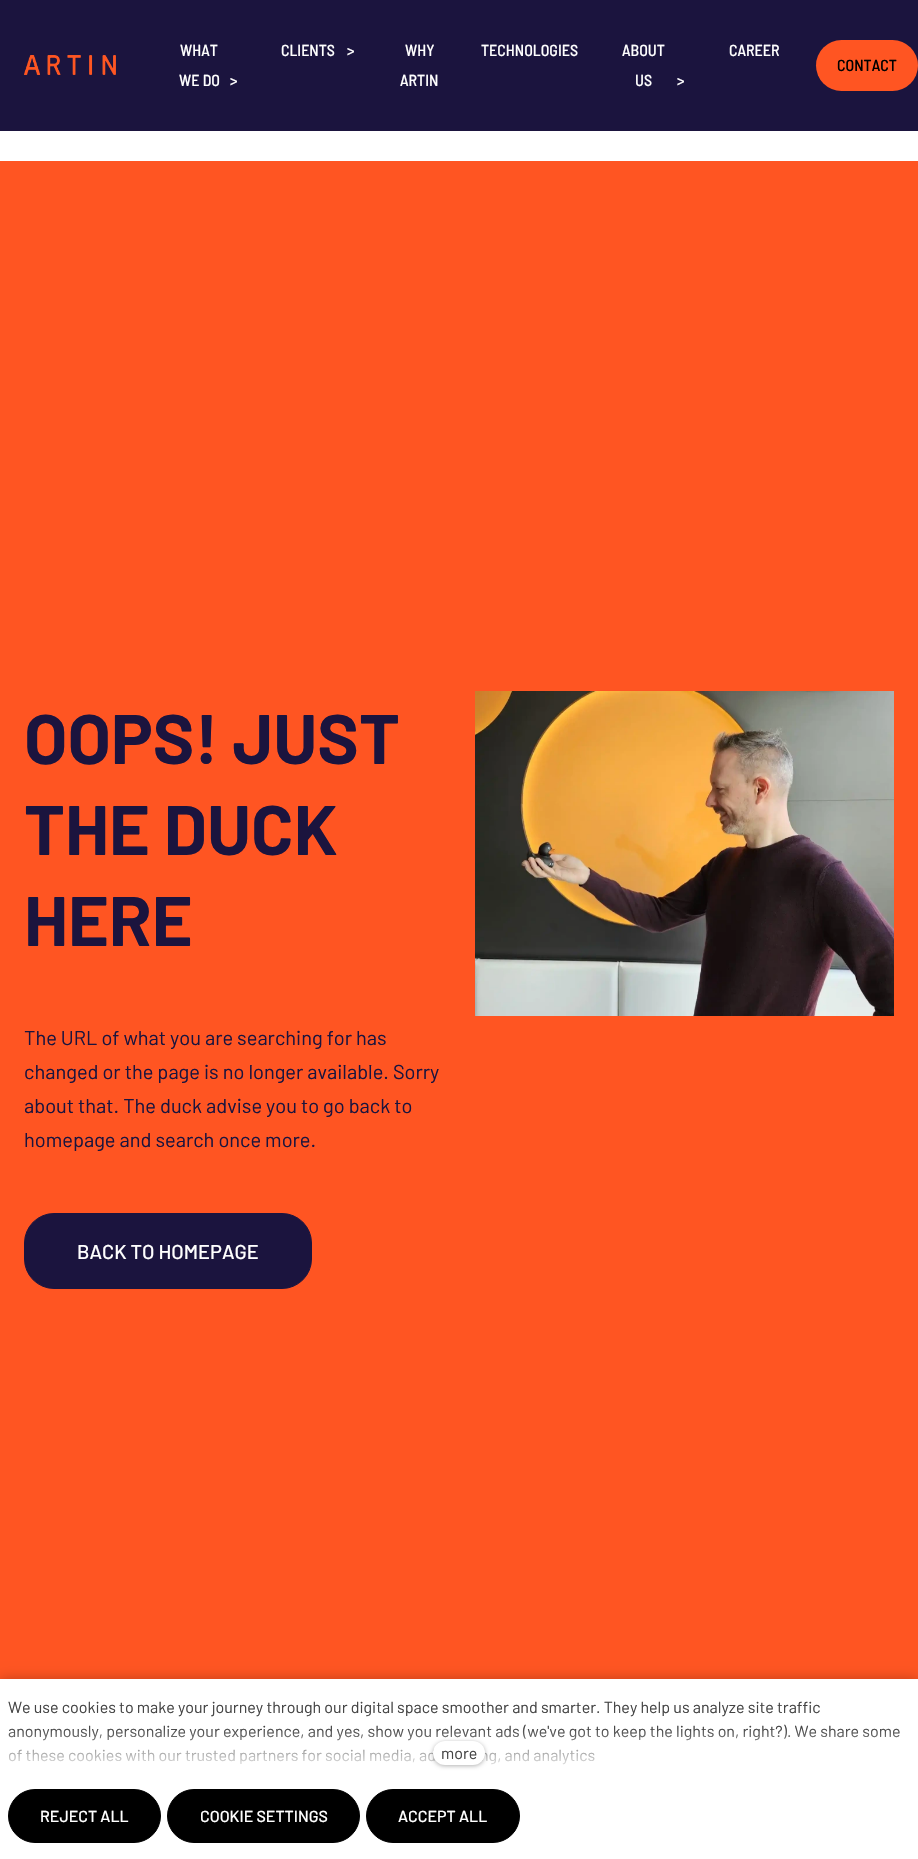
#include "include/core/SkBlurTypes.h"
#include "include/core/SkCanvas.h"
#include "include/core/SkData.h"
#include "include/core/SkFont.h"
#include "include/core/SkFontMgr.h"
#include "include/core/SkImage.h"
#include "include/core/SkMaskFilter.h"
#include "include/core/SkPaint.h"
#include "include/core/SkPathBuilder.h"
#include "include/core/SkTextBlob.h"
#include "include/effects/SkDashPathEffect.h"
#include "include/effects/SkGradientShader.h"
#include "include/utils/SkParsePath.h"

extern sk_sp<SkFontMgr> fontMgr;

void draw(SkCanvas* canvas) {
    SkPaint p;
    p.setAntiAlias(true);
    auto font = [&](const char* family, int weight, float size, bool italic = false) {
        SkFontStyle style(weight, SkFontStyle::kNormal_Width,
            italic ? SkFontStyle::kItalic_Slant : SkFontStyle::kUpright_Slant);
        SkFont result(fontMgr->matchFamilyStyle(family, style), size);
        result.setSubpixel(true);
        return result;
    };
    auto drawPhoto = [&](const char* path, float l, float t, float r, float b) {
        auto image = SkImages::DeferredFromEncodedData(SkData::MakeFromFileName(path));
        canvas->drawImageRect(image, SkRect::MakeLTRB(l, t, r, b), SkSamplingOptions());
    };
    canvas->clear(0xFFFFFFFF);
    p.setColor(0xFF1B143E);
    canvas->drawRect(SkRect::MakeLTRB(0, 0, 918, 131), p);
    drawPhoto("media/1.png", 24, 55, 116, 75);
    auto font1 = font("Barlow Semi Condensed", 500, 16);
    p.setColor(0xFFFFFFFF);
    {
        const struct { const char* s; float x, y; } items[] = {
            {"WHAT", 180, 56},
            {"WE DO", 179, 86},
            {">", 230, 86},
            {"CLIENTS", 281, 56},
            {">", 347, 56},
            {"WHY", 405, 56},
            {"ARTIN", 400, 86},
            {"TECHNOLOGIES", 481, 56},
            {"ABOUT", 622, 56},
            {"US", 635, 86},
            {">", 677, 86},
            {"CAREER", 729, 56},
        };
        for (auto [s, x, y] : items) {
            canvas->drawString(s, x, y, font1, p);
        }
    }
    p.setColor(0xFFFF5522);
    canvas->drawRoundRect(SkRect::MakeLTRB(816, 40, 918, 91), 25.5f, 25.5f, p);
    p.setColor(0xFF000000);
    canvas->drawString("CONTACT", 837, 71, font1, p);
    p.setColor(0xFFFF5522);
    canvas->drawRect(SkRect::MakeLTRB(0, 161, 918, 1679), p);
    auto font2 = font("Barlow", 700, 70);
    p.setColor(0xFF1B143E);
    {
        const struct { const char* s; float x, y; } items[] = {
            {"OOPS! JUST", 24, 764},
            {"THE DUCK", 24, 855},
            {"HERE", 24, 946},
        };
        for (auto [s, x, y] : items) {
            canvas->drawString(s, x, y, font2, p);
        }
    }
    auto font3 = font("Barlow", 400, 20);
    {
        const struct { const char* s; float x, y; } items[] = {
            {"The URL of what you are searching for has", 24, 1045},
            {"changed or the page is no longer available. Sorry", 24, 1079},
            {"about that. The duck advise you to go back to", 24, 1113},
            {"homepage and search once more.", 24, 1147},
        };
        for (auto [s, x, y] : items) {
            canvas->drawString(s, x, y, font3, p);
        }
    }
    canvas->drawRoundRect(SkRect::MakeLTRB(24.5f, 1213.5f, 311.5f, 1288.5f), 29.5f, 29.5f, p);
    p.setStyle(SkPaint::kStroke_Style);
    p.setStrokeWidth(1);
    canvas->drawRoundRect(SkRect::MakeLTRB(24.5f, 1213.5f, 311.5f, 1288.5f), 29.5f, 29.5f, p);
    auto font4 = font("Barlow", 500, 20);
    p.setStyle(SkPaint::kFill_Style);
    p.setColor(0xFFFFFFFF);
    canvas->drawString("BACK TO HOMEPAGE", 77, 1259, font4, p);
    drawPhoto("media/2.png", 475, 691, 894, 1016);
    p.setColor(0x40000000);
    p.setMaskFilter(SkMaskFilter::MakeBlur(kNormal_SkBlurStyle, 6));
    canvas->drawRect(SkRect::MakeLTRB(0, 1679, 918, 1859), p);
    p.setMaskFilter(nullptr);
    p.setColor(0xFFFFFFFF);
    canvas->drawRect(SkRect::MakeLTRB(0, 1679, 918, 1859), p);
    auto font5 = font("Barlow", 400, 16);
    p.setColor(0xFF444444);
    {
        const struct { const char* s; float x, y; } items[] = {
            {"We use cookies to make your journey through our digital space smoother and smarter. They help us analyze site traffic", 8, 1713},
            {"anonymously, personalize your experience, and yes, show you relevant ads (we've got to keep the lights on, right?). We share some", 8, 1737},
            {"of these cookies with our trusted partners for social media, ad", 8, 1761},
            {"ng, and analytics", 480, 1761},
        };
        for (auto [s, x, y] : items) {
            canvas->drawString(s, x, y, font5, p);
        }
    }
    {
        const SkColor colors[] = {0xFFFFFFFF, 0x00FFFFFF};
        const float stops[] = {0, 1};
        const SkPoint ends[] = {{459, 1773}, {459, 1728}};
        p.setShader(SkGradientShader::MakeLinear(ends, colors, stops, 2, SkTileMode::kClamp));
        p.setAlpha(255);
    }
    canvas->drawRect(SkRect::MakeLTRB(8, 1729, 900, 1765), p);
    p.setShader(nullptr);
    p.setColor(0x4D000000);
    p.setMaskFilter(SkMaskFilter::MakeBlur(kNormal_SkBlurStyle, 2));
    canvas->drawRoundRect(SkRect::MakeLTRB(433, 1742, 485, 1766), 12, 12, p);
    p.setMaskFilter(nullptr);
    p.setColor(0xFFFFFFFF);
    canvas->drawRoundRect(SkRect::MakeLTRB(433, 1741, 485, 1765), 12, 12, p);
    p.setColor(0xFF444444);
    canvas->drawString("more", 441, 1759, font5, p);
    p.setColor(0xFF000000);
    canvas->drawRoundRect(SkRect::MakeLTRB(8.5f, 1789.5f, 160.5f, 1842.5f), 26.5f, 26.5f, p);
    p.setStyle(SkPaint::kStroke_Style);
    canvas->drawRoundRect(SkRect::MakeLTRB(8.5f, 1789.5f, 160.5f, 1842.5f), 26.5f, 26.5f, p);
    auto font6 = font("Barlow", 500, 16);
    p.setStyle(SkPaint::kFill_Style);
    p.setColor(0xFFFFFFFF);
    canvas->drawString("REJECT ALL", 40, 1822, font6, p);
    p.setColor(0xFF000000);
    canvas->drawRoundRect(SkRect::MakeLTRB(167.5f, 1789.5f, 359.5f, 1842.5f), 26.5f, 26.5f, p);
    p.setStyle(SkPaint::kStroke_Style);
    canvas->drawRoundRect(SkRect::MakeLTRB(167.5f, 1789.5f, 359.5f, 1842.5f), 26.5f, 26.5f, p);
    p.setStyle(SkPaint::kFill_Style);
    p.setColor(0xFFFFFFFF);
    canvas->drawString("COOKIE SETTINGS", 200, 1822, font6, p);
    p.setColor(0xFF000000);
    canvas->drawRoundRect(SkRect::MakeLTRB(366.5f, 1789.5f, 519.5f, 1842.5f), 26.5f, 26.5f, p);
    p.setStyle(SkPaint::kStroke_Style);
    canvas->drawRoundRect(SkRect::MakeLTRB(366.5f, 1789.5f, 519.5f, 1842.5f), 26.5f, 26.5f, p);
    p.setStyle(SkPaint::kFill_Style);
    p.setColor(0xFFFFFFFF);
    canvas->drawString("ACCEPT ALL", 398, 1822, font6, p);
}
